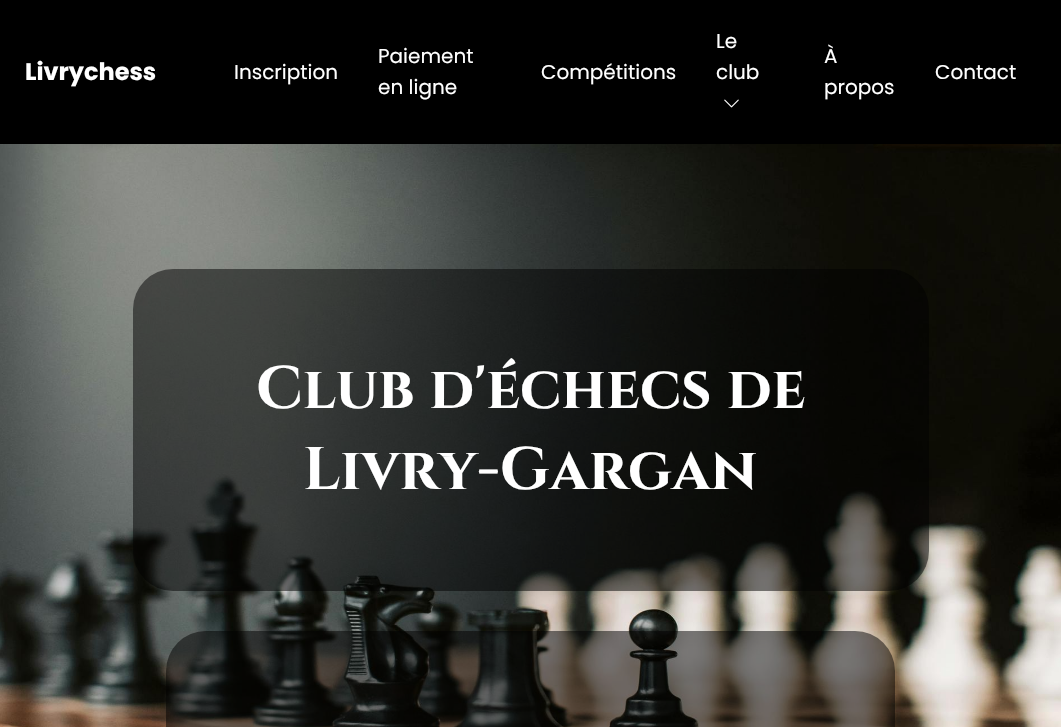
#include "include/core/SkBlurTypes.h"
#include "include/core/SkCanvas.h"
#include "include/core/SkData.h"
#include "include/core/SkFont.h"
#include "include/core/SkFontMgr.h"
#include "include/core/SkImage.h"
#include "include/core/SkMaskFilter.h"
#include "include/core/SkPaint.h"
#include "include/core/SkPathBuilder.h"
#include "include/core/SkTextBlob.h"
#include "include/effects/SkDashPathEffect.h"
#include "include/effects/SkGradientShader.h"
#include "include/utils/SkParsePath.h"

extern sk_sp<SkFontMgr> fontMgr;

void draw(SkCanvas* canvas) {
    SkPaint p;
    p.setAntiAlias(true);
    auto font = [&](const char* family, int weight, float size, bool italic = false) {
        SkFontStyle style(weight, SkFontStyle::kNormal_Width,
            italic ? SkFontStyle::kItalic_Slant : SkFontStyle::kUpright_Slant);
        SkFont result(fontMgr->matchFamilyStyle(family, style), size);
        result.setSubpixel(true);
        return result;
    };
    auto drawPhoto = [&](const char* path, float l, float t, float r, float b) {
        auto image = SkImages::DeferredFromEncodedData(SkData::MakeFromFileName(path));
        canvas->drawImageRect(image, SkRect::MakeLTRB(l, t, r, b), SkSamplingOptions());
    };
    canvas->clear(0xFFFFFFFF);
    p.setColor(0xFF000000);
    canvas->drawRect(SkRect::MakeLTRB(0, 0, 1061, 144), p);
    auto font1 = font("Poppins", 700, 24);
    p.setColor(0xFFFFFFFF);
    canvas->drawString("Livrychess", 25, 80, font1, p);
    auto font2 = font("Poppins", 400, 20);
    {
        const struct { const char* s; float x, y; } items[] = {
            {"Inscription", 234, 79},
            {"Paiement", 378, 63},
            {"en ligne", 378, 94},
            {"Compétitions", 541, 79},
            {"Le", 716, 48},
            {"club", 716, 79},
        };
        for (auto [s, x, y] : items) {
            canvas->drawString(s, x, y, font2, p);
        }
    }
    drawPhoto("media/1.png", 724, 99, 739, 108);
    {
        const struct { const char* s; float x, y; } items[] = {
            {"À", 824, 63},
            {"propos", 824, 94},
            {"Contact", 935, 79},
        };
        for (auto [s, x, y] : items) {
            canvas->drawString(s, x, y, font2, p);
        }
    }
    drawPhoto("media/2.png", 0, 144, 1061, 727);
    p.setColor(0x80000000);
    canvas->drawRoundRect(SkRect::MakeLTRB(133, 269, 929, 591), 40, 40, p);
    auto font3 = font("Cinzel", 700, 60);
    p.setColor(0xFFFFFFFF);
    canvas->drawString("Club d'échecs de", 256, 408, font3, p);
    canvas->drawString("Livry-Gargan", 303, 489, font3, p);
    p.setColor(0x80000000);
    canvas->drawRoundRect(SkRect::MakeLTRB(166, 631, 895, 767), 40, 40, p);
}
